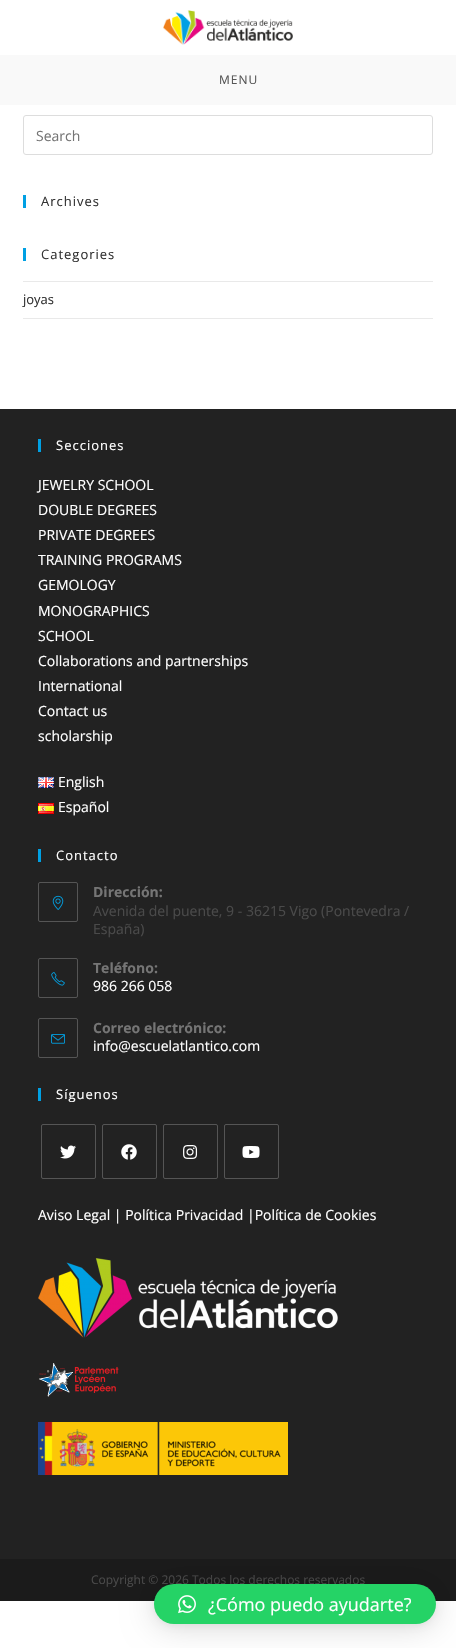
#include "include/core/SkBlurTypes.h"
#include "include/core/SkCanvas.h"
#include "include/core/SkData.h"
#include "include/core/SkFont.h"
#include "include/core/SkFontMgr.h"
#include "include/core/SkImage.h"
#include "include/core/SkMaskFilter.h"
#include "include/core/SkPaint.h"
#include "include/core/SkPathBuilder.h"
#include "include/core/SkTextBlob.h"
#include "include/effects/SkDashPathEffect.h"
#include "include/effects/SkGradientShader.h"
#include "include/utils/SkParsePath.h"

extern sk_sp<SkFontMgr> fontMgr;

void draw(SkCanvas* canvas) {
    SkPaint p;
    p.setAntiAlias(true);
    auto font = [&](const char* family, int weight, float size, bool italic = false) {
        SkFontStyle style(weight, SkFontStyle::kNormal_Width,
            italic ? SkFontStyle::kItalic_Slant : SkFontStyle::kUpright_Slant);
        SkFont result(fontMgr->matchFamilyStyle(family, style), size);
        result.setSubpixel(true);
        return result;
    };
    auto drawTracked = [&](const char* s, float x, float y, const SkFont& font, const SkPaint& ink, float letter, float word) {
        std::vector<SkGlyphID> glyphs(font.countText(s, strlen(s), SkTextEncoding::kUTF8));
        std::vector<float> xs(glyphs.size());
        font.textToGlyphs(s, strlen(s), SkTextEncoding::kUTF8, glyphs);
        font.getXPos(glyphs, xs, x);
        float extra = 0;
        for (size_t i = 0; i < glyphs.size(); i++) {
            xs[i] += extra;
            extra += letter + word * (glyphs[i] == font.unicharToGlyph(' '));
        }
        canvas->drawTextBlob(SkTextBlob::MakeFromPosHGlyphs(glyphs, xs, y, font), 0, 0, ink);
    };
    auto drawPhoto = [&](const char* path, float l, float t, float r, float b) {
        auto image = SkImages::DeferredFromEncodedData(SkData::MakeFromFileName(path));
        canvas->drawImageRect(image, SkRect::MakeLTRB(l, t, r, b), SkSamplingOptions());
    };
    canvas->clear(0xFFFFFFFF);
    drawPhoto("media/1.png", 163, 10, 293, 45);
    p.setColor(0xFFF9F9F9);
    canvas->drawRect(SkRect::MakeLTRB(0, 55, 456, 105), p);
    auto font1 = font("Open Sans", 400, 12);
    p.setColor(0xFF555555);
    drawTracked("MENU", 219, 84, font1, p, 1, 0);
    p.setStyle(SkPaint::kStroke_Style);
    p.setStrokeWidth(1);
    p.setColor(0xFFDDDDDD);
    canvas->drawRoundRect(SkRect::MakeLTRB(23.5f, 115.5f, 432.5f, 154.5f), 2.5f, 2.5f, p);
    auto font2 = font("Open Sans", 400, 14);
    p.setStyle(SkPaint::kFill_Style);
    p.setColor(0xFF757575);
    canvas->drawString("Search", 36, 141, font2, p);
    p.setColor(0xFF00A0E3);
    canvas->drawRect(SkRect::MakeLTRB(23, 195, 26, 208), p);
    auto font3 = font("Open Sans", 400, 13);
    p.setColor(0xFF333333);
    drawTracked("Archives", 41, 206, font3, p, 1, 0);
    p.setColor(0xFF00A0E3);
    canvas->drawRect(SkRect::MakeLTRB(23, 248, 26, 261), p);
    p.setColor(0xFF333333);
    drawTracked("Categories", 41, 259, font3, p, 1, 0);
    p.setColor(0xFFE9E9E9);
    canvas->drawRect(SkRect::MakeLTRB(23, 281, 433, 282), p);
    canvas->drawRect(SkRect::MakeLTRB(23, 318, 433, 319), p);
    p.setColor(0xFF333333);
    canvas->drawString("joyas", 23, 304, font3, p);
    p.setColor(0xFF222222);
    canvas->drawRect(SkRect::MakeLTRB(0, 409, 456, 1559), p);
    p.setColor(0xFF00A0E3);
    canvas->drawRect(SkRect::MakeLTRB(38, 439, 41, 452), p);
    p.setColor(0xFFFFFFFF);
    drawTracked("Secciones", 56, 450, font3, p, 1, 0);
    {
        const struct { const char* s; float x, y; } items[] = {
            {"JEWELRY SCHOOL", 38, 490},
            {"DOUBLE DEGREES", 38, 515},
            {"PRIVATE DEGREES", 38, 540},
            {"TRAINING PROGRAMS", 38, 565},
            {"GEMOLOGY", 38, 590},
            {"MONOGRAPHICS", 38, 616},
            {"SCHOOL", 38, 641},
            {"Collaborations and partnerships", 38, 666},
            {"International", 38, 691},
            {"Contact us", 38, 716},
            {"scholarship", 38, 741},
        };
        for (auto [s, x, y] : items) {
            canvas->drawString(s, x, y, font2, p);
        }
    }
    drawPhoto("media/2.png", 38, 777, 54, 788);
    canvas->drawString("English", 58, 787, font2, p);
    drawPhoto("media/3.png", 38, 803, 54, 814);
    canvas->drawString("Español", 58, 812, font2, p);
    p.setColor(0xFF00A0E3);
    canvas->drawRect(SkRect::MakeLTRB(38, 849, 41, 862), p);
    p.setColor(0xFFFFFFFF);
    drawTracked("Contacto", 56, 860, font3, p, 1, 0);
    p.setStyle(SkPaint::kStroke_Style);
    p.setColor(0xFF555555);
    canvas->drawRoundRect(SkRect::MakeLTRB(38.5f, 882.5f, 77.5f, 921.5f), 1.5f, 1.5f, p);
    drawPhoto("media/4.png", 52, 895, 64, 910);
    auto font4 = font("Open Sans", 700, 14);
    p.setStyle(SkPaint::kFill_Style);
    p.setColor(0xFF757575);
    canvas->drawString("Dirección:", 93, 897, font4, p);
    p.setColor(0xFF4A4A4A);
    canvas->drawString("Avenida del puente, 9 - 36215 Vigo (Pontevedra /", 93, 916, font2, p);
    canvas->drawString("España)", 93, 934, font2, p);
    p.setStyle(SkPaint::kStroke_Style);
    p.setColor(0xFF555555);
    canvas->drawRoundRect(SkRect::MakeLTRB(38.5f, 958.5f, 77.5f, 997.5f), 1.5f, 1.5f, p);
    drawPhoto("media/5.png", 51, 972, 65, 986);
    p.setStyle(SkPaint::kFill_Style);
    p.setColor(0xFF757575);
    canvas->drawString("Teléfono:", 93, 973, font4, p);
    p.setColor(0xFFFFFFFF);
    canvas->drawString("986 266 058", 93, 991, font2, p);
    p.setStyle(SkPaint::kStroke_Style);
    p.setColor(0xFF555555);
    canvas->drawRoundRect(SkRect::MakeLTRB(38.5f, 1018.5f, 77.5f, 1057.5f), 1.5f, 1.5f, p);
    drawPhoto("media/6.png", 51, 1034, 65, 1044);
    p.setStyle(SkPaint::kFill_Style);
    p.setColor(0xFF757575);
    canvas->drawString("Correo electrónico:", 93, 1033, font4, p);
    p.setColor(0xFFFFFFFF);
    canvas->drawString("info@escuelatlantico.com", 93, 1051, font2, p);
    p.setColor(0xFF00A0E3);
    canvas->drawRect(SkRect::MakeLTRB(38, 1088, 41, 1101), p);
    p.setColor(0xFFFFFFFF);
    drawTracked("Síguenos", 56, 1099, font3, p, 1, 0);
    p.setStyle(SkPaint::kStroke_Style);
    p.setColor(0xFF555555);
    canvas->drawRoundRect(SkRect::MakeLTRB(41.5f, 1124.5f, 95.5f, 1178.5f), 1.5f, 1.5f, p);
    drawPhoto("media/7.png", 60, 1145, 76, 1159);
    canvas->drawRoundRect(SkRect::MakeLTRB(102.5f, 1124.5f, 156.5f, 1178.5f), 1.5f, 1.5f, p);
    drawPhoto("media/8.png", 121, 1144, 137, 1160);
    canvas->drawRoundRect(SkRect::MakeLTRB(163.5f, 1124.5f, 217.5f, 1178.5f), 1.5f, 1.5f, p);
    drawPhoto("media/9.png", 183, 1145, 198, 1159);
    canvas->drawRoundRect(SkRect::MakeLTRB(224.5f, 1124.5f, 278.5f, 1178.5f), 1.5f, 1.5f, p);
    drawPhoto("media/10.png", 242, 1146, 260, 1158);
    p.setStyle(SkPaint::kFill_Style);
    p.setColor(0xFFFFFFFF);
    canvas->drawString("Aviso Legal | Política Privacidad |Política de Cookies", 38, 1220, font2, p);
    drawPhoto("media/11.png", 38, 1258, 338, 1338);
    drawPhoto("media/12.png", 39, 1363, 119, 1397);
    drawPhoto("media/13.png", 38, 1422, 288, 1475);
    p.setColor(0xFF1B1B1B);
    canvas->drawRect(SkRect::MakeLTRB(0, 1559, 456, 1601), p);
    p.setColor(0xFF4A4A4A);
    canvas->drawString("Copyright © 2026 Todos los derechos reservados", 91, 1584, font1, p);
    p.setColor(0x29000000);
    p.setMaskFilter(SkMaskFilter::MakeBlur(kNormal_SkBlurStyle, 16));
    canvas->drawRoundRect(SkRect::MakeLTRB(154, 1586, 436, 1626), 20, 20, p);
    p.setMaskFilter(nullptr);
    p.setColor(0x0F000000);
    p.setMaskFilter(SkMaskFilter::MakeBlur(kNormal_SkBlurStyle, 3));
    canvas->drawRoundRect(SkRect::MakeLTRB(154, 1585, 436, 1625), 20, 20, p);
    p.setMaskFilter(nullptr);
    p.setColor(0xFF25D366);
    canvas->drawRoundRect(SkRect::MakeLTRB(154, 1584, 436, 1624), 20, 20, p);
    drawPhoto("media/14.png", 178, 1595, 196, 1614);
    auto font5 = font("Open Sans", 400, 18);
    p.setColor(0xFFFFFFFF);
    canvas->drawString("¿Cómo puedo ayudarte?", 208, 1611, font5, p);
}
